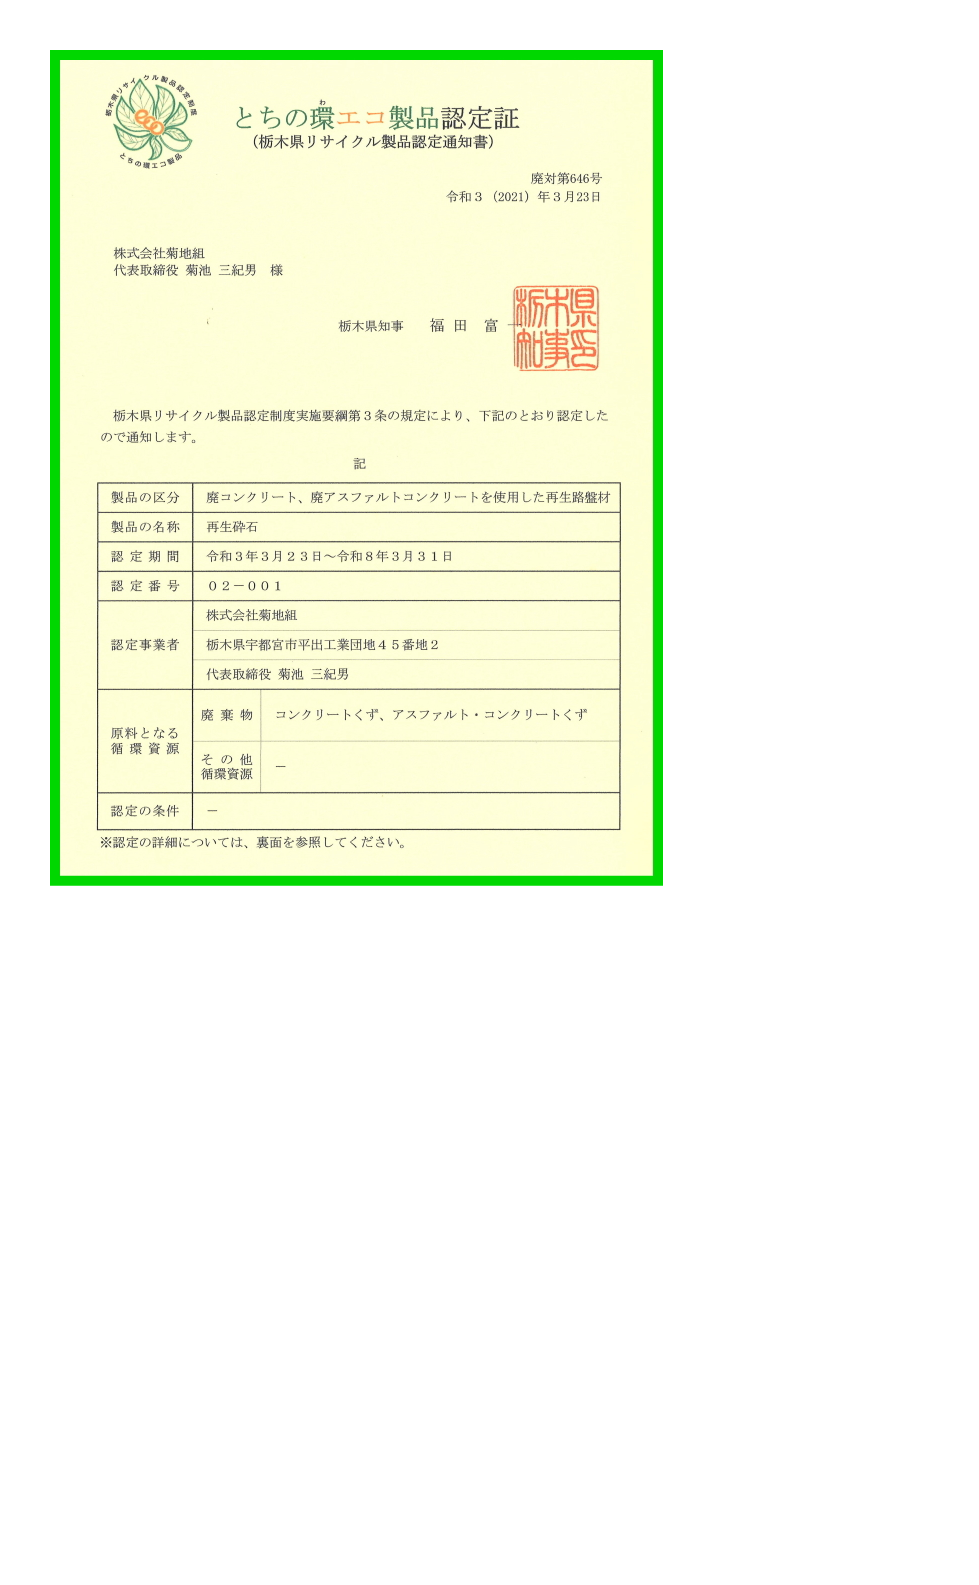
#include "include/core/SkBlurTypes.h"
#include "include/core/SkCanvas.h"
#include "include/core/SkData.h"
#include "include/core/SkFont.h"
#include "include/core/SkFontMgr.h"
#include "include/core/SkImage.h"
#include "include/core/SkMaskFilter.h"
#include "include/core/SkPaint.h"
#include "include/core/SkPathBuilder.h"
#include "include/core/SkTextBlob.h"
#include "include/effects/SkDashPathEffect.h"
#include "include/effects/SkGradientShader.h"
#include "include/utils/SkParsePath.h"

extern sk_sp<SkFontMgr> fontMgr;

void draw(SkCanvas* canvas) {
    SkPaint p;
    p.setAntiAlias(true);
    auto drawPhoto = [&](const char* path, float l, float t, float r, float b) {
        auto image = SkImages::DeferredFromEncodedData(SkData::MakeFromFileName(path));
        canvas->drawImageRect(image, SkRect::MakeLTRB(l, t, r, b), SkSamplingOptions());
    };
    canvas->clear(0xFFFFFFFF);
    drawPhoto("media/1.png", 50, 50, 663, 886);
}
